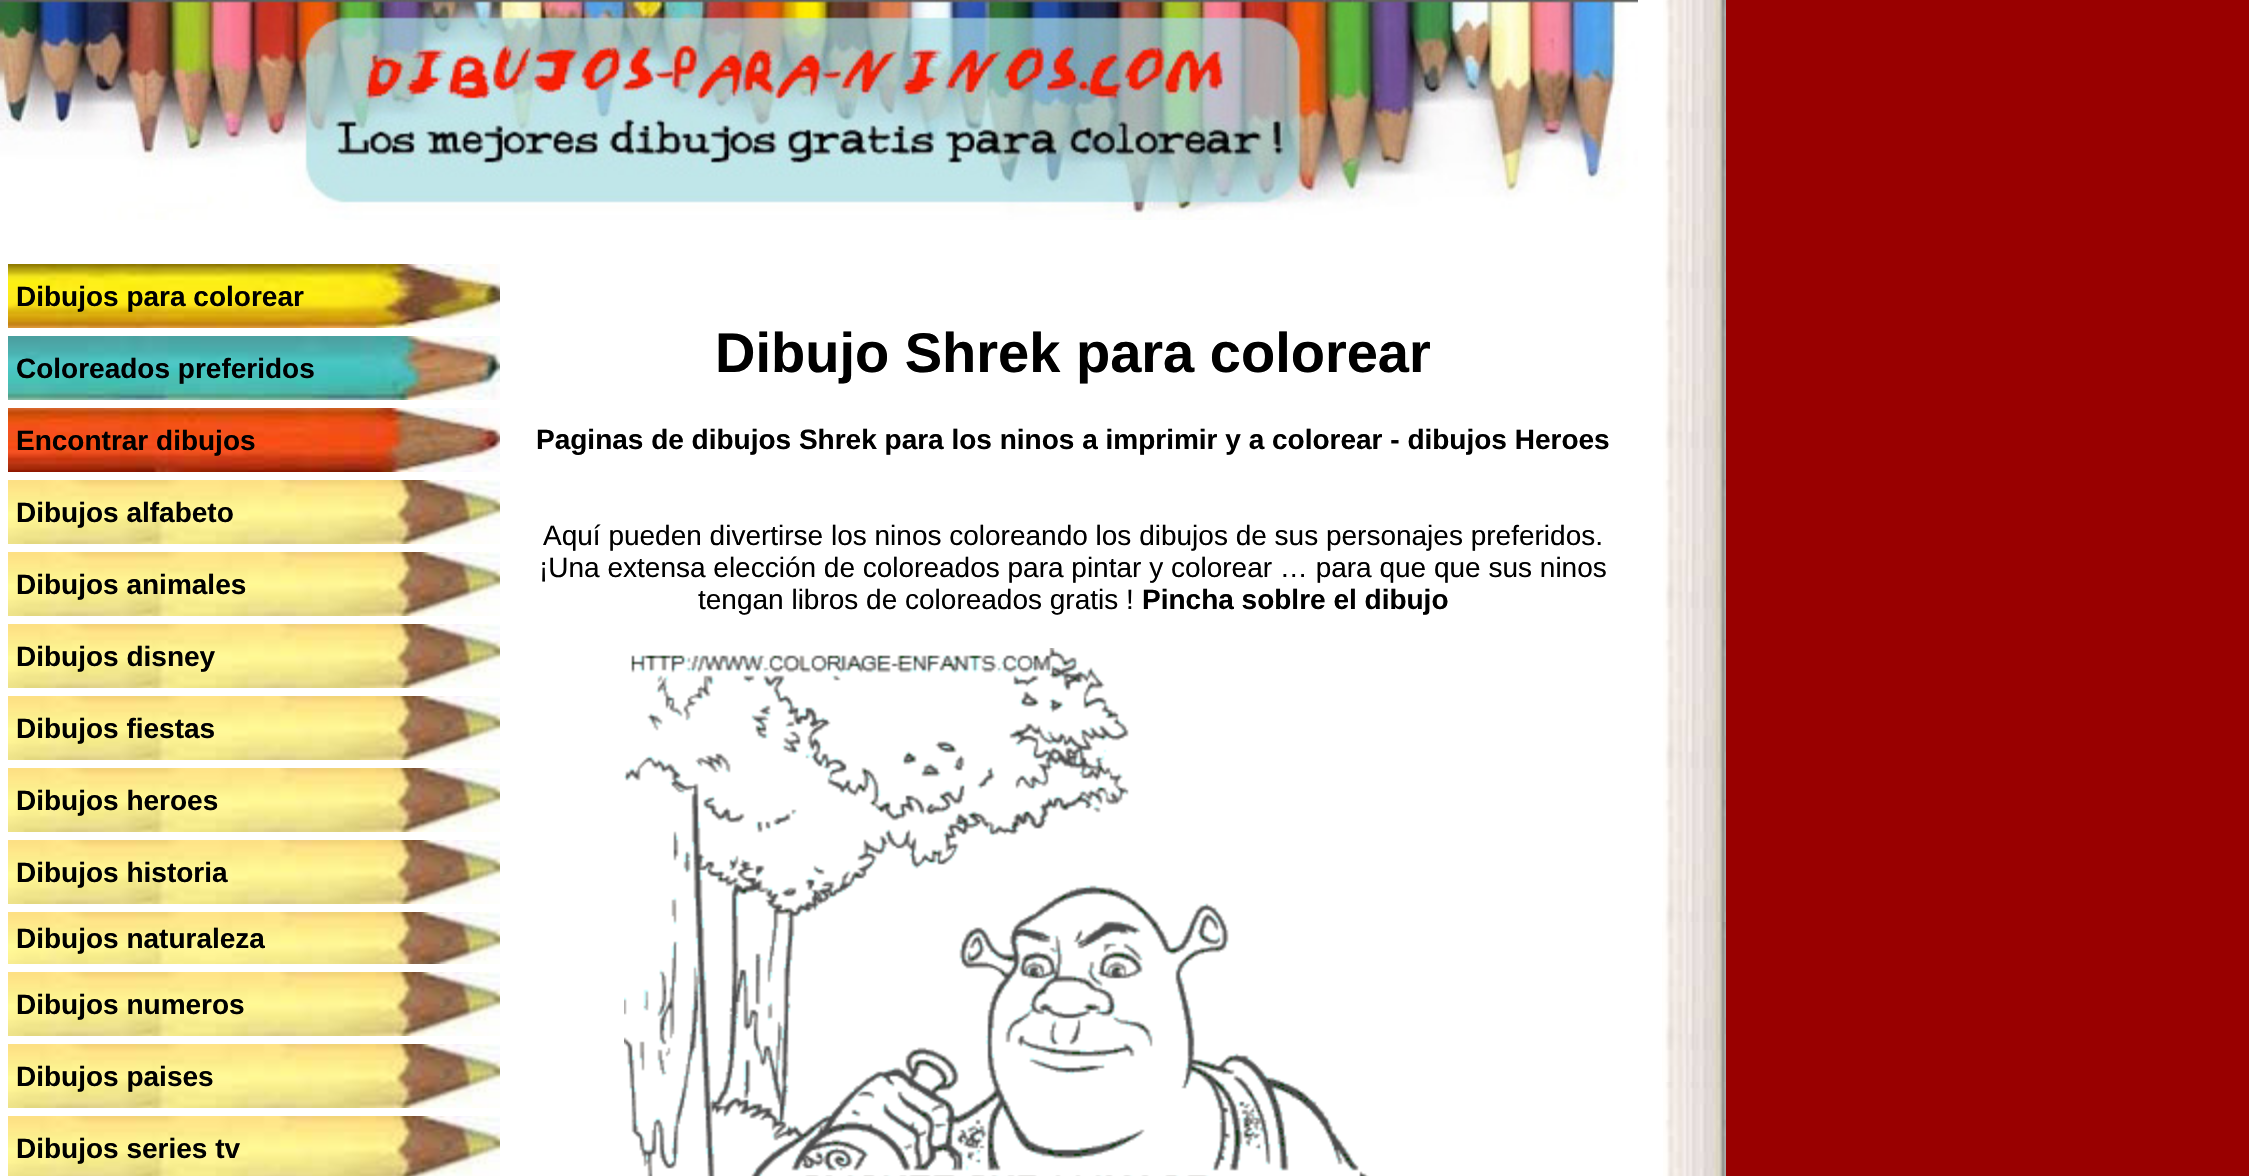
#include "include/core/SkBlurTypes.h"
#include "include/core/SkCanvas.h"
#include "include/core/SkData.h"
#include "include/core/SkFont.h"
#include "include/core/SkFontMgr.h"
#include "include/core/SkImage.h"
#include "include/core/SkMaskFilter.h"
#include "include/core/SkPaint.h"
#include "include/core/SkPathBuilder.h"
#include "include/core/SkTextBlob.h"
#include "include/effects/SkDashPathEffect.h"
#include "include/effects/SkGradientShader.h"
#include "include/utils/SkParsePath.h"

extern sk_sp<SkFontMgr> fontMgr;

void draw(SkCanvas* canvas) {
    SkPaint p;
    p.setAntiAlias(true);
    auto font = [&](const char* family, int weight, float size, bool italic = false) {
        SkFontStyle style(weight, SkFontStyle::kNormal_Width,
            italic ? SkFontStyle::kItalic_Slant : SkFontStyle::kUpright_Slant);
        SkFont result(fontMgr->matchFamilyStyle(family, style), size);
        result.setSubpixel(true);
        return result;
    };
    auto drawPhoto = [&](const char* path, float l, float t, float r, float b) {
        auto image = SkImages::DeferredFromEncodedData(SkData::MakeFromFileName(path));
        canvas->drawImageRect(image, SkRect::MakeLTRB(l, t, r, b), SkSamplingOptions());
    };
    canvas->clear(0xFF990000);
    p.setColor(0xFFFFFFFF);
    canvas->drawRect(SkRect::MakeLTRB(0, 0, 1663, 1176), p);
    drawPhoto("media/1.png", 0, 0, 1638, 220);
    drawPhoto("media/2.png", 8, 264, 500, 328);
    auto font1 = font("Liberation Sans", 700, 28);
    p.setColor(0xFF000000);
    canvas->drawString("Dibujos para colorear", 16, 306, font1, p);
    drawPhoto("media/3.png", 8, 336, 500, 400);
    canvas->drawString("Coloreados preferidos", 16, 378, font1, p);
    drawPhoto("media/4.png", 8, 408, 500, 472);
    canvas->drawString("Encontrar dibujos", 16, 450, font1, p);
    drawPhoto("media/5.png", 8, 480, 500, 544);
    canvas->drawString("Dibujos alfabeto", 16, 522, font1, p);
    drawPhoto("media/5.png", 8, 552, 500, 616);
    canvas->drawString("Dibujos animales", 16, 594, font1, p);
    drawPhoto("media/5.png", 8, 624, 500, 688);
    canvas->drawString("Dibujos disney", 16, 666, font1, p);
    drawPhoto("media/5.png", 8, 696, 500, 760);
    canvas->drawString("Dibujos fiestas", 16, 738, font1, p);
    drawPhoto("media/5.png", 8, 768, 500, 832);
    canvas->drawString("Dibujos heroes", 16, 810, font1, p);
    drawPhoto("media/5.png", 8, 840, 500, 904);
    canvas->drawString("Dibujos historia", 16, 882, font1, p);
    drawPhoto("media/6.png", 8, 912, 500, 964);
    canvas->drawString("Dibujos naturaleza", 16, 948, font1, p);
    drawPhoto("media/5.png", 8, 972, 500, 1036);
    canvas->drawString("Dibujos numeros", 16, 1014, font1, p);
    drawPhoto("media/5.png", 8, 1044, 500, 1108);
    canvas->drawString("Dibujos paises", 16, 1086, font1, p);
    drawPhoto("media/7.png", 8, 1116, 500, 1176);
    canvas->drawString("Dibujos series tv", 16, 1158, font1, p);
    auto font2 = font("Liberation Sans", 700, 56);
    canvas->drawString("Dibujo Shrek para colorear", 715, 372, font2, p);
    canvas->drawString("Paginas de dibujos Shrek para los ninos a imprimir y a colorear - dibujos Heroes", 536, 449, font1, p);
    auto font3 = font("Liberation Sans", 400, 28);
    {
        const struct { const char* s; float x, y; } items[] = {
            {"Aquí pueden divertirse los ninos coloreando los dibujos de sus personajes preferidos.", 543, 545},
            {"¡Una extensa elección de coloreados para pintar y colorear … para que que sus ninos", 539, 577},
            {"tengan libros de coloreados gratis !", 698, 609},
        };
        for (auto [s, x, y] : items) {
            canvas->drawString(s, x, y, font3, p);
        }
    }
    canvas->drawString("Pincha soblre el dibujo", 1142, 609, font1, p);
    drawPhoto("media/8.png", 624, 648, 1369, 1176);
    drawPhoto("media/9.png", 1663, 0, 1726, 1176);
    drawPhoto("media/10.png", 1662, 922, 1726, 1082);
}
